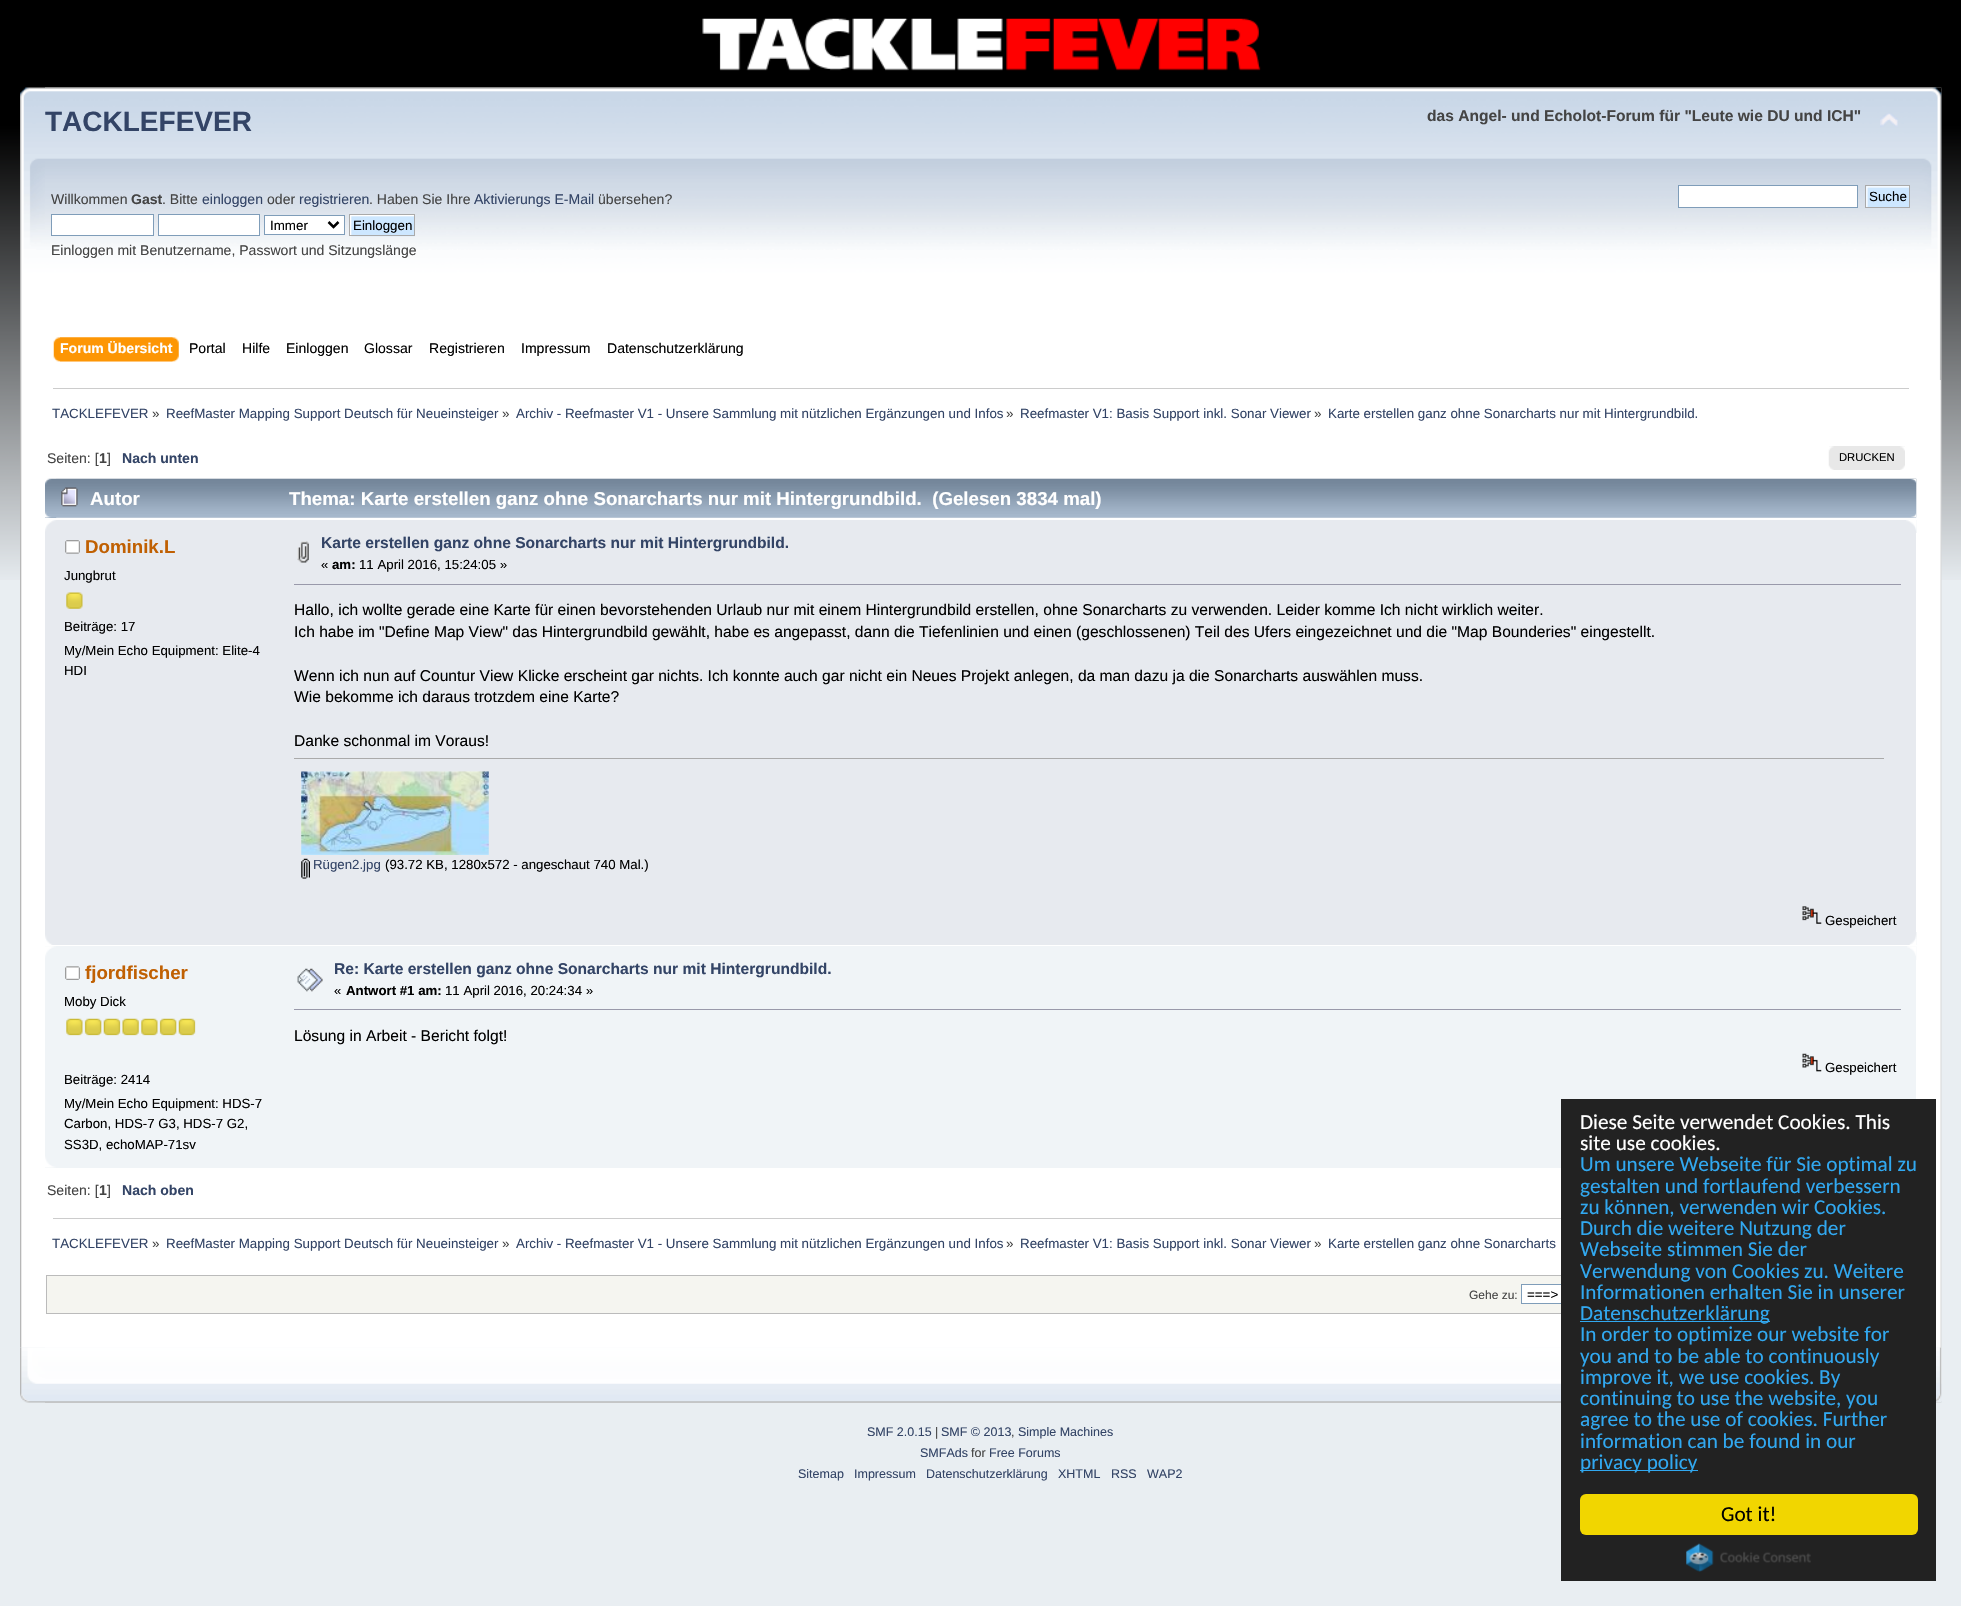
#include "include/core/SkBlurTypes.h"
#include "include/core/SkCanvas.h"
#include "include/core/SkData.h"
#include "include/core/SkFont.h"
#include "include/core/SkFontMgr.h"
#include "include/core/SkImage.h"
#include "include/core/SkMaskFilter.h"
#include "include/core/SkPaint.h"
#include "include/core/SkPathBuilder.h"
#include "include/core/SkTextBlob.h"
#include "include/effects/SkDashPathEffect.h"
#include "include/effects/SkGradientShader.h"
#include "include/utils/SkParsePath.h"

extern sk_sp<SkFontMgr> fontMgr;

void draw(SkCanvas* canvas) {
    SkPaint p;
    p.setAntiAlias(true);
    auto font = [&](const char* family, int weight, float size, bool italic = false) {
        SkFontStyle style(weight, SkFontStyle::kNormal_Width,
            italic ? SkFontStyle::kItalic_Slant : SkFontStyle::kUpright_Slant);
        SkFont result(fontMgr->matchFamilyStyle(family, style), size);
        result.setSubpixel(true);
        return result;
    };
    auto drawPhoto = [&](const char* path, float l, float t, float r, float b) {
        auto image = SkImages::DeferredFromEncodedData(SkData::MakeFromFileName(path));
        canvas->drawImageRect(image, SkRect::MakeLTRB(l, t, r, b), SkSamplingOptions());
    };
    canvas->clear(0xFFE9EEF2);
    drawPhoto("media/1.png", 0, 0, 1961, 580);
    drawPhoto("media/2.png", 702, 18, 1261, 71);
    drawPhoto("media/3.png", 20, 87, 1942, 380);
    drawPhoto("media/4.png", 45, 87, 1942, 380);
    auto font1 = font("Liberation Sans", 700, 28);
    p.setColor(0xFF334466);
    canvas->drawString("TACKLEFEVER", 45, 131, font1, p);
    auto font2 = font("Liberation Sans", 700, 15.6f);
    p.setColor(0xFF444444);
    canvas->drawString("das Angel- und Echolot-Forum für \"Leute wie DU und ICH\"", 1427, 121, font2, p);
    drawPhoto("media/5.png", 1880, 113, 1898, 127);
    auto font3 = font("Liberation Sans", 400, 14.05f);
    canvas->drawString("Willkommen", 51, 204, font3, p);
    auto font4 = font("Liberation Sans", 700, 14.05f);
    canvas->drawString("Gast", 131, 204, font4, p);
    canvas->drawString(". Bitte", 162, 204, font3, p);
    p.setColor(0xFF334466);
    canvas->drawString("einloggen", 202, 204, font3, p);
    p.setColor(0xFF444444);
    canvas->drawString("oder", 267, 204, font3, p);
    p.setColor(0xFF334466);
    canvas->drawString("registrieren", 299, 204, font3, p);
    p.setColor(0xFF444444);
    canvas->drawString(". Haben Sie Ihre", 369, 204, font3, p);
    p.setColor(0xFF334466);
    canvas->drawString("Aktivierungs E-Mail", 474, 204, font3, p);
    p.setColor(0xFF444444);
    canvas->drawString("übersehen?", 598, 204, font3, p);
    p.setColor(0xFFFFFFFF);
    canvas->drawRect(SkRect::MakeLTRB(51.5f, 214.5f, 153.5f, 235.5f), p);
    p.setStyle(SkPaint::kStroke_Style);
    p.setStrokeWidth(1);
    p.setColor(0xFF7F9DB9);
    canvas->drawRect(SkRect::MakeLTRB(51.5f, 214.5f, 153.5f, 235.5f), p);
    p.setStyle(SkPaint::kFill_Style);
    p.setColor(0xFFFFFFFF);
    canvas->drawRect(SkRect::MakeLTRB(158.5f, 214.5f, 259.5f, 235.5f), p);
    p.setStyle(SkPaint::kStroke_Style);
    p.setColor(0xFF7F9DB9);
    canvas->drawRect(SkRect::MakeLTRB(158.5f, 214.5f, 259.5f, 235.5f), p);
    p.setStyle(SkPaint::kFill_Style);
    p.setColor(0xFFFFFFFF);
    canvas->drawRect(SkRect::MakeLTRB(264.5f, 215.5f, 344.5f, 234.5f), p);
    p.setStyle(SkPaint::kStroke_Style);
    p.setColor(0xFF7F9DB9);
    canvas->drawRect(SkRect::MakeLTRB(264.5f, 215.5f, 344.5f, 234.5f), p);
    p.setStrokeWidth(2.5f);
    p.setColor(0xFF000000);
    canvas->drawPath(SkPathBuilder().moveTo(328.5f, 222).lineTo(333.5f, 227).lineTo(338.5f, 222).detach(), p);
    auto font5 = font("Liberation Sans", 400, 13.35f);
    p.setStyle(SkPaint::kFill_Style);
    canvas->drawString("Immer", 270, 230, font5, p);
    drawPhoto("media/6.png", 350, 215, 415, 237);
    p.setStyle(SkPaint::kStroke_Style);
    p.setStrokeWidth(1);
    p.setColor(0xFFAAAAAA);
    canvas->drawRect(SkRect::MakeLTRB(349.5f, 214.5f, 414.5f, 235.5f), p);
    p.setStyle(SkPaint::kFill_Style);
    p.setColor(0xFF000000);
    canvas->drawString("Einloggen", 353, 230, font5, p);
    p.setColor(0xFF444444);
    canvas->drawString("Einloggen mit Benutzername, Passwort und Sitzungslänge", 51, 255, font3, p);
    p.setColor(0xFFFFFFFF);
    canvas->drawRect(SkRect::MakeLTRB(1678.5f, 185.5f, 1857.5f, 207.5f), p);
    p.setStyle(SkPaint::kStroke_Style);
    p.setColor(0xFF7F9DB9);
    canvas->drawRect(SkRect::MakeLTRB(1678.5f, 185.5f, 1857.5f, 207.5f), p);
    p.setStyle(SkPaint::kFill_Style);
    p.setColor(0xFFCDE7FF);
    canvas->drawRect(SkRect::MakeLTRB(1866, 186, 1909, 207), p);
    drawPhoto("media/7.png", 1866, 186, 1909, 207);
    p.setStyle(SkPaint::kStroke_Style);
    p.setColor(0xFFAAAAAA);
    canvas->drawRect(SkRect::MakeLTRB(1865.5f, 185.5f, 1909.5f, 207.5f), p);
    p.setStyle(SkPaint::kFill_Style);
    p.setColor(0xFF000000);
    canvas->drawString("Suche", 1869, 201, font5, p);
    drawPhoto("media/8.png", 60, 337, 179, 362);
    drawPhoto("media/9.png", 53, 337, 173, 362);
    p.setColor(0xFFFFFFFF);
    canvas->drawString("Forum Übersicht", 60, 353, font4, p);
    p.setColor(0xFF000000);
    {
        const struct { const char* s; float x, y; } items[] = {
            {"Portal", 189, 353},
            {"Hilfe", 242, 353},
            {"Einloggen", 286, 353},
            {"Glossar", 364, 353},
            {"Registrieren", 429, 353},
            {"Impressum", 521, 353},
            {"Datenschutzerklärung", 607, 353},
        };
        for (auto [s, x, y] : items) {
            canvas->drawString(s, x, y, font3, p);
        }
    }
    drawPhoto("media/10.png", 20, 380, 1942, 1348);
    drawPhoto("media/11.png", 1940, 380, 1942, 1348);
    p.setColor(0xFFCCCCCC);
    canvas->drawRect(SkRect::MakeLTRB(53, 388, 1909, 389), p);
    p.setColor(0xFF334466);
    canvas->drawString("TACKLEFEVER", 52, 418, font5, p);
    p.setColor(0xFF444444);
    canvas->drawString("»", 152, 418, font5, p);
    p.setColor(0xFF334466);
    canvas->drawString("ReefMaster Mapping Support Deutsch für Neueinsteiger", 166, 418, font5, p);
    p.setColor(0xFF444444);
    canvas->drawString("»", 502, 418, font5, p);
    p.setColor(0xFF334466);
    canvas->drawString("Archiv - Reefmaster V1 - Unsere Sammlung mit nützlichen Ergänzungen und Infos", 516, 418, font5, p);
    p.setColor(0xFF444444);
    canvas->drawString("»", 1006, 418, font5, p);
    p.setColor(0xFF334466);
    canvas->drawString("Reefmaster V1: Basis Support inkl. Sonar Viewer", 1020, 418, font5, p);
    p.setColor(0xFF444444);
    canvas->drawString("»", 1314, 418, font5, p);
    p.setColor(0xFF334466);
    canvas->drawString("Karte erstellen ganz ohne Sonarcharts nur mit Hintergrundbild.", 1328, 418, font5, p);
    p.setColor(0xFF444444);
    canvas->drawString("Seiten: [", 47, 463, font3, p);
    canvas->drawString("1", 99, 463, font4, p);
    canvas->drawString("]", 107, 463, font3, p);
    p.setColor(0xFF334466);
    canvas->drawString("Nach unten", 122, 463, font4, p);
    p.setColor(0xFFE8E8E8);
    canvas->drawRect(SkRect::MakeLTRB(1829, 446, 1905, 470), p);
    drawPhoto("media/12.png", 1828, 446, 1834, 470);
    drawPhoto("media/13.png", 1900, 446, 1905, 470);
    auto font6 = font("Liberation Sans", 400, 11.25f);
    p.setColor(0xFF000000);
    canvas->drawString("DRUCKEN", 1839, 461, font6, p);
    p.setColor(0xFF99ABBF);
    canvas->drawRect(SkRect::MakeLTRB(45, 517, 1916, 518), p);
    drawPhoto("media/14.png", 45, 478, 1917, 518);
    drawPhoto("media/15.png", 56, 478, 1917, 518);
    drawPhoto("media/16.png", 61, 487, 78, 507);
    auto font7 = font("Liberation Sans", 700, 18.7f);
    p.setColor(0xFFFFFFFF);
    canvas->drawString("Autor", 90, 505, font7, p);
    canvas->drawString("Thema: Karte erstellen ganz ohne Sonarcharts nur mit Hintergrundbild.  (Gelesen 3834 mal)", 289, 505, font7, p);
    p.setColor(0xFFE7EAEF);
    canvas->drawRect(SkRect::MakeLTRB(45, 533, 1916, 932), p);
    drawPhoto("media/17.png", 45, 520, 1917, 533);
    drawPhoto("media/18.png", 1906, 520, 1917, 533);
    drawPhoto("media/19.png", 65, 540, 80, 554);
    p.setColor(0xFFC06002);
    canvas->drawString("Dominik.L", 85, 553, font7, p);
    auto font8 = font("Liberation Sans", 400, 13.25f);
    p.setColor(0xFF000000);
    canvas->drawString("Jungbrut", 64, 580, font8, p);
    drawPhoto("media/20.png", 66, 592, 83, 609);
    {
        const struct { const char* s; float x, y; } items[] = {
            {"Beiträge: 17", 64, 631},
            {"My/Mein Echo Equipment: Elite-4", 64, 655},
            {"HDI", 64, 675},
        };
        for (auto [s, x, y] : items) {
            canvas->drawString(s, x, y, font8, p);
        }
    }
    drawPhoto("media/21.png", 297, 541, 309, 563);
    p.setColor(0xFF334466);
    canvas->drawString("Karte erstellen ganz ohne Sonarcharts nur mit Hintergrundbild.", 321, 548, font2, p);
    p.setColor(0xFF000000);
    canvas->drawString("«", 321, 569, font8, p);
    auto font9 = font("Liberation Sans", 700, 13.25f);
    canvas->drawString("am:", 332, 569, font9, p);
    canvas->drawString("11 April 2016, 15:24:05 »", 359, 569, font8, p);
    p.setColor(0xFF9999AA);
    canvas->drawRect(SkRect::MakeLTRB(294, 584, 1901, 585), p);
    auto font10 = font("Liberation Sans", 400, 15.6f);
    p.setColor(0xFF000000);
    {
        const struct { const char* s; float x, y; } items[] = {
            {"Hallo, ich wollte gerade eine Karte für einen bevorstehenden Urlaub nur mit einem Hintergrundbild erstellen, ohne Sonarcharts zu verwenden. Leider komme Ich nicht wirklich weiter.", 294, 615},
            {"Ich habe im \"Define Map View\" das Hintergrundbild gewählt, habe es angepasst, dann die Tiefenlinien und einen (geschlossenen) Teil des Ufers eingezeichnet und die \"Map Bounderies\" eingestellt.", 294, 637},
            {"Wenn ich nun auf Countur View Klicke erscheint gar nichts. Ich konnte auch gar nicht ein Neues Projekt anlegen, da man dazu ja die Sonarcharts auswählen muss.", 294, 681},
            {"Wie bekomme ich daraus trotzdem eine Karte?", 294, 702},
            {"Danke schonmal im Voraus!", 294, 746},
        };
        for (auto [s, x, y] : items) {
            canvas->drawString(s, x, y, font10, p);
        }
    }
    p.setColor(0xFFAAAAAA);
    canvas->drawRect(SkRect::MakeLTRB(294, 758, 1884, 759), p);
    drawPhoto("media/22.png", 301, 771, 489, 855);
    drawPhoto("media/23.png", 301, 858, 310, 879);
    p.setColor(0xFF334466);
    canvas->drawString("Rügen2.jpg", 313, 869, font8, p);
    p.setColor(0xFF000000);
    canvas->drawString("(93.72 KB, 1280x572 - angeschaut 740 Mal.)", 385, 869, font8, p);
    drawPhoto("media/24.png", 1802, 906, 1822, 924);
    canvas->drawString("Gespeichert", 1825, 925, font8, p);
    drawPhoto("media/25.png", 45, 932, 1917, 945);
    drawPhoto("media/26.png", 1909, 932, 1917, 945);
    p.setColor(0xFFF0F4F7);
    canvas->drawRect(SkRect::MakeLTRB(45, 946, 1916, 1168), p);
    drawPhoto("media/27.png", 45, 946, 1917, 960);
    drawPhoto("media/28.png", 1907, 946, 1916, 956);
    drawPhoto("media/29.png", 65, 966, 80, 980);
    p.setColor(0xFFC06002);
    canvas->drawString("fjordfischer", 85, 979, font7, p);
    p.setColor(0xFF000000);
    canvas->drawString("Moby Dick", 64, 1006, font8, p);
    drawPhoto("media/30.png", 66, 1018, 83, 1036);
    drawPhoto("media/31.png", 84, 1018, 102, 1036);
    drawPhoto("media/32.png", 103, 1018, 121, 1036);
    drawPhoto("media/33.png", 122, 1018, 139, 1036);
    drawPhoto("media/30.png", 141, 1018, 158, 1036);
    drawPhoto("media/31.png", 159, 1018, 177, 1036);
    drawPhoto("media/32.png", 178, 1018, 196, 1036);
    {
        const struct { const char* s; float x, y; } items[] = {
            {"Beiträge: 2414", 64, 1084},
            {"My/Mein Echo Equipment: HDS-7", 64, 1108},
            {"Carbon, HDS-7 G3, HDS-7 G2,", 64, 1128},
            {"SS3D, echoMAP-71sv", 64, 1149},
        };
        for (auto [s, x, y] : items) {
            canvas->drawString(s, x, y, font8, p);
        }
    }
    drawPhoto("media/34.png", 297, 968, 323, 992);
    p.setColor(0xFF334466);
    canvas->drawString("Re: Karte erstellen ganz ohne Sonarcharts nur mit Hintergrundbild.", 334, 974, font2, p);
    p.setColor(0xFF000000);
    canvas->drawString("«", 334, 995, font8, p);
    canvas->drawString("Antwort #1 am:", 346, 995, font9, p);
    canvas->drawString("11 April 2016, 20:24:34 »", 445, 995, font8, p);
    p.setColor(0xFF9999AA);
    canvas->drawRect(SkRect::MakeLTRB(294, 1009, 1901, 1010), p);
    p.setColor(0xFF000000);
    canvas->drawString("Lösung in Arbeit - Bericht folgt!", 294, 1041, font10, p);
    drawPhoto("media/35.png", 1802, 1053, 1822, 1072);
    canvas->drawString("Gespeichert", 1825, 1072, font8, p);
    drawPhoto("media/36.png", 45, 1154, 1561, 1168);
    p.setColor(0xFF444444);
    canvas->drawString("Seiten: [", 47, 1195, font3, p);
    canvas->drawString("1", 99, 1195, font4, p);
    canvas->drawString("]", 107, 1195, font3, p);
    p.setColor(0xFF334466);
    canvas->drawString("Nach oben", 122, 1195, font4, p);
    p.setColor(0xFFCCCCCC);
    canvas->drawRect(SkRect::MakeLTRB(53, 1218, 1561, 1219), p);
    p.setColor(0xFF334466);
    canvas->drawString("TACKLEFEVER", 52, 1248, font5, p);
    p.setColor(0xFF444444);
    canvas->drawString("»", 152, 1248, font5, p);
    p.setColor(0xFF334466);
    canvas->drawString("ReefMaster Mapping Support Deutsch für Neueinsteiger", 166, 1248, font5, p);
    p.setColor(0xFF444444);
    canvas->drawString("»", 502, 1248, font5, p);
    p.setColor(0xFF334466);
    canvas->drawString("Archiv - Reefmaster V1 - Unsere Sammlung mit nützlichen Ergänzungen und Infos", 516, 1248, font5, p);
    p.setColor(0xFF444444);
    canvas->drawString("»", 1006, 1248, font5, p);
    p.setColor(0xFF334466);
    canvas->drawString("Reefmaster V1: Basis Support inkl. Sonar Viewer", 1020, 1248, font5, p);
    p.setColor(0xFF444444);
    canvas->drawString("»", 1314, 1248, font5, p);
    p.setColor(0xFF334466);
    canvas->drawString("Karte erstellen ganz ohne Sonarcharts", 1328, 1248, font5, p);
    p.setColor(0xFFF5F5F0);
    canvas->drawRect(SkRect::MakeLTRB(47, 1276, 1561, 1313), p);
    p.setStyle(SkPaint::kStroke_Style);
    p.setColor(0xFFBBBBBB);
    canvas->drawRect(SkRect::MakeLTRB(46.5f, 1275.5f, 1914.5f, 1313.5f), p);
    auto font11 = font("Liberation Sans", 400, 12);
    p.setStyle(SkPaint::kFill_Style);
    p.setColor(0xFF444444);
    canvas->drawString("Gehe zu:", 1469, 1299, font11, p);
    p.setColor(0xFFFFFFFF);
    canvas->drawRect(SkRect::MakeLTRB(1522, 1285, 1561, 1303), p);
    p.setStyle(SkPaint::kStroke_Style);
    p.setColor(0xFF7F9DB9);
    canvas->drawRect(SkRect::MakeLTRB(1521.5f, 1284.5f, 1874.5f, 1303.5f), p);
    p.setStyle(SkPaint::kFill_Style);
    p.setColor(0xFF000000);
    canvas->drawString("===>", 1527, 1299, font5, p);
    drawPhoto("media/37.png", 20, 1347, 1942, 1403);
    drawPhoto("media/38.png", 45, 1347, 1942, 1403);
    auto font12 = font("Liberation Sans", 400, 12.5f);
    p.setColor(0xFF334466);
    canvas->drawString("SMF 2.0.15", 867, 1436, font12, p);
    p.setColor(0xFF444444);
    canvas->drawString("|", 935, 1436, font12, p);
    p.setColor(0xFF334466);
    canvas->drawString("SMF © 2013", 941, 1436, font12, p);
    p.setColor(0xFF444444);
    canvas->drawString(",", 1011, 1436, font12, p);
    p.setColor(0xFF334466);
    canvas->drawString("Simple Machines", 1018, 1436, font12, p);
    canvas->drawString("SMFAds", 920, 1457, font12, p);
    p.setColor(0xFF444444);
    canvas->drawString("for", 971, 1457, font12, p);
    p.setColor(0xFF334466);
    {
        const struct { const char* s; float x, y; } items[] = {
            {"Free Forums", 989, 1457},
            {"Sitemap", 798, 1478},
            {"Impressum", 854, 1478},
            {"Datenschutzerklärung", 926, 1478},
            {"XHTML", 1058, 1478},
            {"RSS", 1111, 1478},
            {"WAP2", 1147, 1478},
        };
        for (auto [s, x, y] : items) {
            canvas->drawString(s, x, y, font12, p);
        }
    }
    p.setColor(0xFF222222);
    canvas->drawRect(SkRect::MakeLTRB(1561, 1099, 1936, 1581), p);
    auto font13 = font("Carlito", 400, 21.25f);
    p.setColor(0xFFFFFFFF);
    canvas->drawString("Diese Seite verwendet Cookies. This", 1580, 1129, font13, p);
    canvas->drawString("site use cookies.", 1580, 1150, font13, p);
    p.setColor(0xFF31A8F0);
    {
        const struct { const char* s; float x, y; } items[] = {
            {"Um unsere Webseite für Sie optimal zu", 1580, 1171},
            {"gestalten und fortlaufend verbessern", 1580, 1193},
            {"zu können, verwenden wir Cookies.", 1580, 1214},
            {"Durch die weitere Nutzung der", 1580, 1235},
            {"Webseite stimmen Sie der", 1580, 1256},
            {"Verwendung von Cookies zu. Weitere", 1580, 1278},
            {"Informationen erhalten Sie in unserer", 1580, 1299},
        };
        for (auto [s, x, y] : items) {
            canvas->drawString(s, x, y, font13, p);
        }
    }
    canvas->drawRect(SkRect::MakeLTRB(1580, 1321, 1770, 1322), p);
    {
        const struct { const char* s; float x, y; } items[] = {
            {"Datenschutzerklärung", 1580, 1320},
            {"In order to optimize our website for", 1580, 1341},
            {"you and to be able to continuously", 1580, 1363},
            {"improve it, we use cookies. By", 1580, 1384},
            {"continuing to use the website, you", 1580, 1405},
            {"agree to the use of cookies. Further", 1580, 1426},
            {"information can be found in our", 1580, 1448},
        };
        for (auto [s, x, y] : items) {
            canvas->drawString(s, x, y, font13, p);
        }
    }
    canvas->drawRect(SkRect::MakeLTRB(1580, 1470, 1698, 1471), p);
    canvas->drawString("privacy policy", 1580, 1469, font13, p);
    p.setColor(0xFFF1D600);
    canvas->drawRoundRect(SkRect::MakeLTRB(1580, 1494, 1918, 1535), 6, 6, p);
    p.setColor(0xFF000000);
    canvas->drawString("Got it!", 1721, 1521, font13, p);
    drawPhoto("media/39.png", 1686, 1543, 1811, 1572);
}
